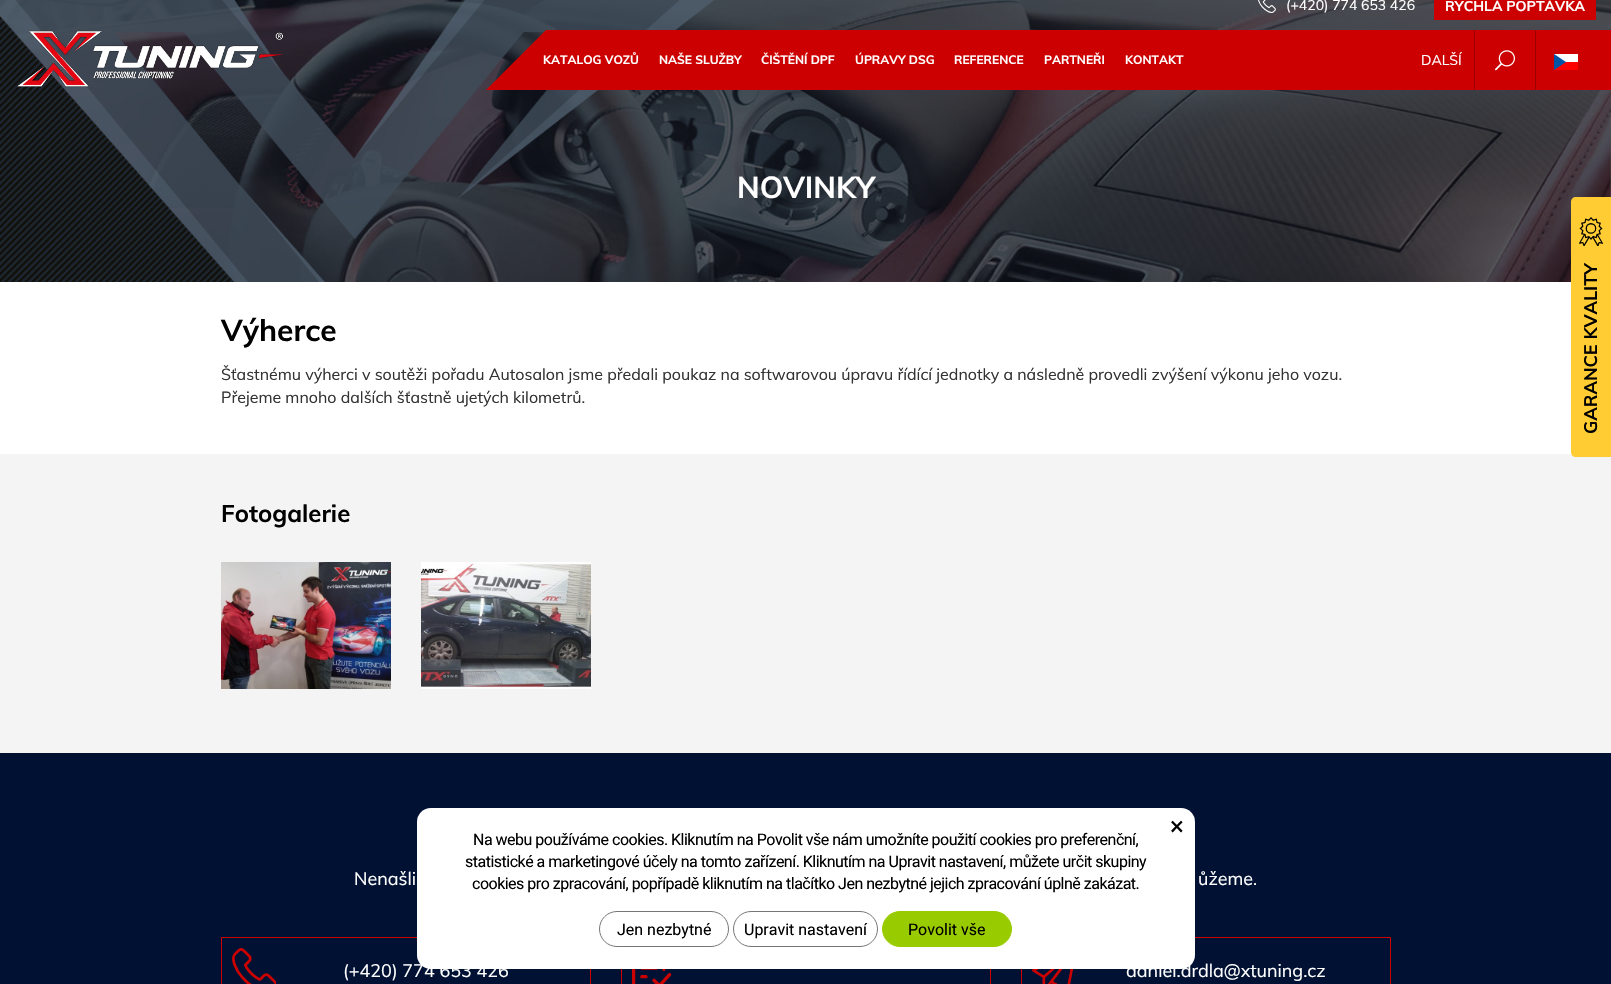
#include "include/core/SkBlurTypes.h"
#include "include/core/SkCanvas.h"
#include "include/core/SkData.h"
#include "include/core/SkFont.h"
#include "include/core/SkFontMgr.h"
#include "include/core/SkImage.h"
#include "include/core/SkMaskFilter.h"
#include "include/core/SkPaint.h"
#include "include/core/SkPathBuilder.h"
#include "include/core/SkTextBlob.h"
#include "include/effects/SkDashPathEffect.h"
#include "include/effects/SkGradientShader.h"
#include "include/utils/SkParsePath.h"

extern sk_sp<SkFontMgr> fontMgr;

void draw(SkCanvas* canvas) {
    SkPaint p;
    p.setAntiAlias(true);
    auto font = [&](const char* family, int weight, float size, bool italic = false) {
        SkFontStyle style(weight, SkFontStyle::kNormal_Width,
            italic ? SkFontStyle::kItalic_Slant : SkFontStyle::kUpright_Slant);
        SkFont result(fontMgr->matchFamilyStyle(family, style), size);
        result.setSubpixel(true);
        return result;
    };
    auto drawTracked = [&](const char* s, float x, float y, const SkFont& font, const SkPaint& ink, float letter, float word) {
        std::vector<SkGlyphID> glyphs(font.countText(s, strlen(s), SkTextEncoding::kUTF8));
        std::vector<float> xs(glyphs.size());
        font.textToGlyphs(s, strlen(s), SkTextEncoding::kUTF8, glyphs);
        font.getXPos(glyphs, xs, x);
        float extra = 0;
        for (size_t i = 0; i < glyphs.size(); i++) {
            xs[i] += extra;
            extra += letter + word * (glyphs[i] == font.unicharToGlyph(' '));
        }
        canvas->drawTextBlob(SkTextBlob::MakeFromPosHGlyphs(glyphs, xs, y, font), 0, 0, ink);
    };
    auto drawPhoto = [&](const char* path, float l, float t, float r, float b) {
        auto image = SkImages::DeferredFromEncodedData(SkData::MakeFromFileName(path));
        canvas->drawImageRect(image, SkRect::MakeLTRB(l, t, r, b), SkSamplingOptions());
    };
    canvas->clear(0xFFF4F4F4);
    drawPhoto("media/4.png", 0, 0, 1611, 282);
    drawPhoto("media/5.png", 0, 0, 1611, 282);
    p.setColor(0xFFCC0000);
    canvas->drawPath(SkPathBuilder().moveTo(546, 90).lineTo(486, 90).lineTo(546, 30).close().detach(), p);
    canvas->drawRect(SkRect::MakeLTRB(546, 30, 1611, 90), p);
    auto font1 = font("Muli", 700, 12);
    p.setColor(0xFFFFFFFF);
    {
        const struct { const char* s; float x, y; } items[] = {
            {"KATALOG VOZŮ", 543, 64},
            {"NAŠE SLUŽBY", 659, 64},
            {"ČIŠTĚNÍ DPF", 761, 64},
            {"ÚPRAVY DSG", 855, 64},
            {"REFERENCE", 954, 64},
            {"PARTNEŘI", 1044, 64},
            {"KONTAKT", 1125, 64},
        };
        for (auto [s, x, y] : items) {
            canvas->drawString(s, x, y, font1, p);
        }
    }
    drawPhoto("media/1.png", 1258, 0, 1276, 13);
    auto font2 = font("Muli", 400, 14);
    canvas->drawString("(+420) 774 653 426", 1286, 10, font2, p);
    p.setColor(0xFFCC0000);
    canvas->drawRect(SkRect::MakeLTRB(1434, 0, 1596, 20), p);
    auto font3 = font("Muli", 700, 14);
    p.setColor(0xFFFFFFFF);
    canvas->drawString("RYCHLÁ POPTÁVKA", 1445, 11, font3, p);
    drawPhoto("media/2.png", 17, 30, 284, 88);
    canvas->drawString("DALŠÍ", 1421, 65, font2, p);
    p.setColor(0xFF9C0000);
    canvas->drawRect(SkRect::MakeLTRB(1535, 30, 1536, 90), p);
    canvas->drawRect(SkRect::MakeLTRB(1474, 30, 1475, 90), p);
    drawPhoto("media/3.png", 1495, 50, 1515, 71);
    p.setColor(0xFFFFFFFF);
    canvas->drawRect(SkRect::MakeLTRB(1554, 54, 1578, 62), p);
    p.setColor(0xFFFF0000);
    canvas->drawRect(SkRect::MakeLTRB(1554, 62, 1578, 70), p);
    p.setColor(0xFF0054A8);
    canvas->drawPath(SkPathBuilder().moveTo(1554, 54).lineTo(1566, 62).lineTo(1554, 70).close().detach(), p);
    auto font4 = font("Muli", 700, 30);
    p.setColor(0xFFFFFFFF);
    canvas->drawString("NOVINKY", 737, 198, font4, p);
    canvas->drawRect(SkRect::MakeLTRB(0, 282, 1572, 454), p);
    p.setColor(0xFF000000);
    canvas->drawString("Výherce", 221, 341, font4, p);
    auto font5 = font("Muli", 400, 16);
    p.setColor(0xFF333333);
    canvas->drawString("Šťastnému výherci v soutěži pořadu Autosalon jsme předali poukaz na softwarovou úpravu řídící jednotky a následně provedli zvýšení výkonu jeho vozu.", 221, 380, font5, p);
    canvas->drawString("Přejeme mnoho dalších šťastně ujetých kilometrů.", 221, 403, font5, p);
    auto font6 = font("Muli", 700, 24);
    p.setColor(0xFF000000);
    canvas->drawString("Fotogalerie", 221, 522, font6, p);
    drawPhoto("media/6.png", 221, 562, 391, 689);
    drawPhoto("media/7.png", 421, 562, 591, 689);
    p.setColor(0xFFFFCC33);
    canvas->drawPath(SkPathBuilder().moveTo(1576, 197).lineTo(1611, 197).lineTo(1611, 457).lineTo(1576, 457).cubicTo(1573, 457, 1571, 455, 1571, 452).lineTo(1571, 202).cubicTo(1571, 199, 1573, 197, 1576, 197).close().detach(), p);
    drawPhoto("media/8.png", 1579, 217, 1603, 246);
    auto font7 = font("Muli", 700, 18);
    p.setColor(0xFF000000);
    canvas->save();
    canvas->rotate(-90, 1597, 434);
    canvas->drawString("GARANCE KVALITY", 1597, 434, font7, p);
    canvas->restore();
    p.setColor(0xFF001133);
    canvas->drawRect(SkRect::MakeLTRB(0, 753, 1611, 984), p);
    auto font8 = font("Muli", 400, 18);
    p.setColor(0xFFFFFFFF);
    canvas->drawString("Nenašli", 354, 885, font8, p);
    canvas->drawString("ůžeme.", 1198, 885, font8, p);
    p.setStyle(SkPaint::kStroke_Style);
    p.setStrokeWidth(1);
    p.setColor(0xFFCC0000);
    canvas->drawRect(SkRect::MakeLTRB(221.5f, 937.5f, 590.5f, 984.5f), p);
    drawPhoto("media/9.png", 232, 948, 276, 984);
    p.setStyle(SkPaint::kFill_Style);
    p.setColor(0xFFFFFFFF);
    canvas->drawString("(+420) 774 653 426", 343, 977, font8, p);
    p.setStyle(SkPaint::kStroke_Style);
    p.setColor(0xFFCC0000);
    canvas->drawRect(SkRect::MakeLTRB(621.5f, 937.5f, 990.5f, 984.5f), p);
    drawPhoto("media/10.png", 632, 969, 672, 984);
    canvas->drawRect(SkRect::MakeLTRB(1021.5f, 937.5f, 1390.5f, 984.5f), p);
    drawPhoto("media/11.png", 1032, 969, 1073, 984);
    p.setStyle(SkPaint::kFill_Style);
    p.setColor(0xFFFFFFFF);
    canvas->drawString("daniel.drdla@xtuning.cz", 1126, 977, font8, p);
    canvas->drawRoundRect(SkRect::MakeLTRB(417, 808, 1195, 969), 14, 14, p);
    auto font9 = font("Roboto", 400, 26);
    p.setColor(0xFF000000);
    canvas->drawString("×", 1170, 835, font9, p);
    auto font10 = font("Roboto", 400, 16);
    {
        const struct { const char* s; float x, y; } items[] = {
            {"Na webu používáme cookies. Kliknutím na Povolit vše nám umožníte použití cookies pro preferenční,", 473, 845},
            {"statistické a marketingové účely na tomto zařízení. Kliknutím na Upravit nastavení, můžete určit skupiny", 465, 867},
            {"cookies pro zpracování, popřípadě kliknutím na tlačítko Jen nezbytné jejich zpracování úplně zakázat.", 472, 889},
        };
        for (auto [s, x, y] : items) {
            drawTracked(s, x, y, font10, p, -0.5f, 0);
        }
    }
    p.setStyle(SkPaint::kStroke_Style);
    p.setColor(0xFF767676);
    canvas->drawRoundRect(SkRect::MakeLTRB(599.5f, 911.5f, 728.5f, 946.5f), 17.5f, 17.5f, p);
    p.setStyle(SkPaint::kFill_Style);
    p.setColor(0xFF000000);
    canvas->drawString("Jen nezbytné", 617, 935, font10, p);
    p.setStyle(SkPaint::kStroke_Style);
    p.setColor(0xFF767676);
    canvas->drawRoundRect(SkRect::MakeLTRB(733.5f, 911.5f, 877.5f, 946.5f), 17.5f, 17.5f, p);
    p.setStyle(SkPaint::kFill_Style);
    p.setColor(0xFF000000);
    canvas->drawString("Upravit nastavení", 744, 935, font10, p);
    p.setColor(0xFF99CC00);
    canvas->drawRoundRect(SkRect::MakeLTRB(882.5f, 911.5f, 1011.5f, 946.5f), 17.5f, 17.5f, p);
    p.setStyle(SkPaint::kStroke_Style);
    canvas->drawRoundRect(SkRect::MakeLTRB(882.5f, 911.5f, 1011.5f, 946.5f), 17.5f, 17.5f, p);
    p.setStyle(SkPaint::kFill_Style);
    p.setColor(0xFF000000);
    canvas->drawString("Povolit vše", 908, 935, font10, p);
}
